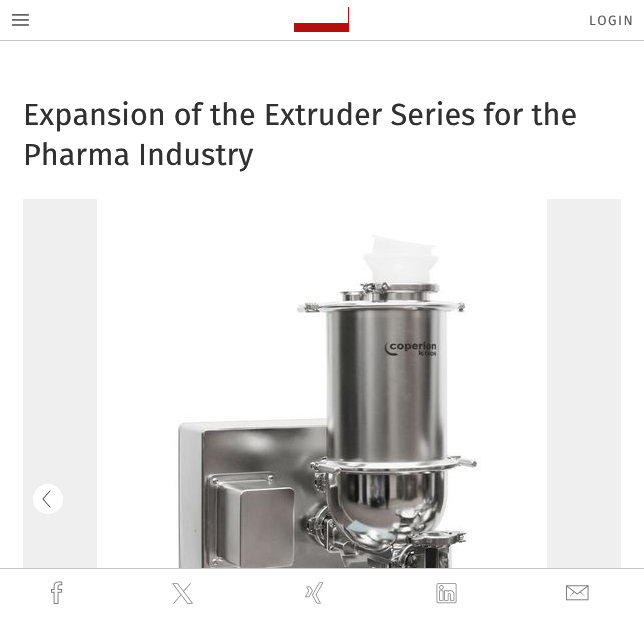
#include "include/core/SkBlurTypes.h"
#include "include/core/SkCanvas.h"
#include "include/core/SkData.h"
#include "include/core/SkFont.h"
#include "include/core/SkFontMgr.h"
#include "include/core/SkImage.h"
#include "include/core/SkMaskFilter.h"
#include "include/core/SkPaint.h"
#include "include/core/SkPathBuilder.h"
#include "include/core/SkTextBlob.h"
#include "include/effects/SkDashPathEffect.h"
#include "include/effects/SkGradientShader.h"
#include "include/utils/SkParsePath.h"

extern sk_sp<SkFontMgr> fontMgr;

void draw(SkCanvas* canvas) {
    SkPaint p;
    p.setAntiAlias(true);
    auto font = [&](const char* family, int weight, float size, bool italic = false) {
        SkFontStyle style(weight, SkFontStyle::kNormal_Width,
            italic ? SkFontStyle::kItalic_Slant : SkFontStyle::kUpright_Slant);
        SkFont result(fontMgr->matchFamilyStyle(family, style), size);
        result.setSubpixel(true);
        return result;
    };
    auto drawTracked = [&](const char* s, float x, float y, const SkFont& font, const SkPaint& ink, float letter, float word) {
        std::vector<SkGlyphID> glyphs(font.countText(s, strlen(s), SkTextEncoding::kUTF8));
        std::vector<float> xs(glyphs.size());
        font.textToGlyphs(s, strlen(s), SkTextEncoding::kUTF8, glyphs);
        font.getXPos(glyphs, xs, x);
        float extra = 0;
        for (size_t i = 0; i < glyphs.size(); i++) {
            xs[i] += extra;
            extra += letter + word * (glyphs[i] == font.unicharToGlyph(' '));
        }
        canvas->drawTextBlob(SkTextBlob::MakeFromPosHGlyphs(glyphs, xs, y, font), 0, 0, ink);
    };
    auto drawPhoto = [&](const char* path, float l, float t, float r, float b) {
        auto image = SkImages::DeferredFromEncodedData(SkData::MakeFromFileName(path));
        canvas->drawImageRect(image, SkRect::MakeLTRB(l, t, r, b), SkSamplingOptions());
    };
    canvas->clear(0xFFFFFFFF);
    p.setColor(0xFFC6C6C6);
    canvas->drawRect(SkRect::MakeLTRB(0, 40, 644, 41), p);
    drawPhoto("media/1.png", 12, 14, 29, 26);
    p.setColor(0xFFB60E0C);
    canvas->drawRect(SkRect::MakeLTRB(348, 7, 349, 23), p);
    canvas->drawRect(SkRect::MakeLTRB(294, 23, 349, 32), p);
    auto font1 = font("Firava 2", 400, 13.5f);
    p.setColor(0xFF5E5E5E);
    drawTracked("LOGIN", 589, 25, font1, p, 1.5f, 0);
    auto font2 = font("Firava", 400, 30.6f);
    p.setColor(0xFF303030);
    canvas->drawString("Expansion of the Extruder Series for the", 23, 125, font2, p);
    canvas->drawString("Pharma Industry", 23, 165, font2, p);
    p.setColor(0xFFEFEFEF);
    canvas->drawRect(SkRect::MakeLTRB(23, 199, 621, 568), p);
    drawPhoto("media/2.png", 33, 484, 63, 514);
    drawPhoto("media/3.png", 97, 199, 547, 568);
    p.setColor(0xFFC6C6C6);
    canvas->drawRect(SkRect::MakeLTRB(0, 568, 644, 569), p);
    drawPhoto("media/4.png", 51, 581, 63, 604);
    drawPhoto("media/5.png", 172, 583, 193, 604);
    drawPhoto("media/6.png", 305, 582, 324, 604);
    drawPhoto("media/7.png", 436, 583, 457, 604);
    drawPhoto("media/8.png", 566, 585, 589, 601);
}
